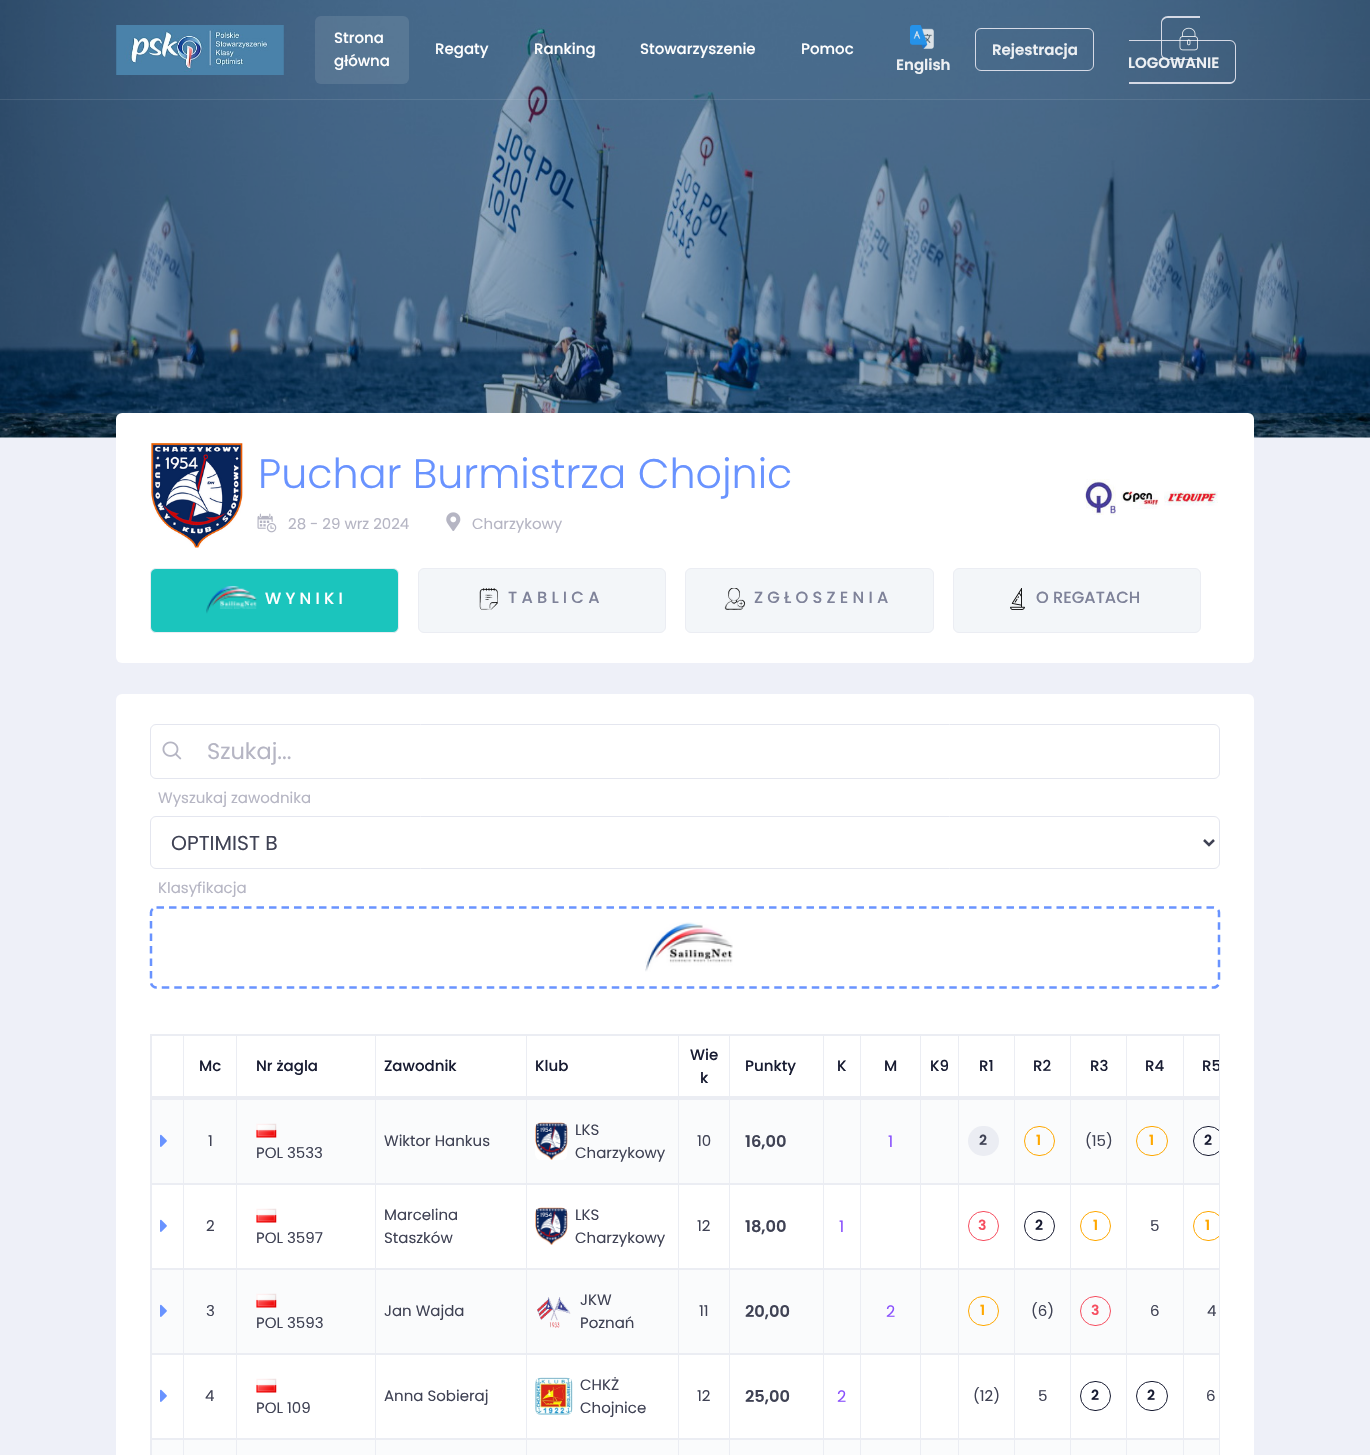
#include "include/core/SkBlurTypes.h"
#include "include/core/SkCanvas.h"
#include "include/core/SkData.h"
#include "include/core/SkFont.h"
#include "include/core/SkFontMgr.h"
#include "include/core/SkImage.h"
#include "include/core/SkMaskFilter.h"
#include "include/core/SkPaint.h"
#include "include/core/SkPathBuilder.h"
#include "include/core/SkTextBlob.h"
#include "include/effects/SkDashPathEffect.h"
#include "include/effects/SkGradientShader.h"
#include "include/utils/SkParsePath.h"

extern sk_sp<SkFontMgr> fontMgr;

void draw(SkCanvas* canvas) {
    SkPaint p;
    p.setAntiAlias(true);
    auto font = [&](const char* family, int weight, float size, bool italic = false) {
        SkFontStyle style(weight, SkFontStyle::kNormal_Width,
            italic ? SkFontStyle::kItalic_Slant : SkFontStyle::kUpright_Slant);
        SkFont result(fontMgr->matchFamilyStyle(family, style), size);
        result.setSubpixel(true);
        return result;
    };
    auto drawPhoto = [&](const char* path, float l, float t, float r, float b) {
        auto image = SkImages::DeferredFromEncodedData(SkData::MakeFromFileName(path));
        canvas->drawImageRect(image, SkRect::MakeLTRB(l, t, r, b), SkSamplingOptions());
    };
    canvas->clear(0xFFEEF0F8);
    drawPhoto("media/1.png", 0, 0, 1370, 438);
    p.setColor(0x66003366);
    canvas->drawRect(SkRect::MakeLTRB(0, 0, 1370, 100), p);
    p.setColor(0x1AFFFFFF);
    canvas->drawRect(SkRect::MakeLTRB(0, 99, 1370, 100), p);
    drawPhoto("media/2.png", 116, 25, 284, 75);
    canvas->drawRoundRect(SkRect::MakeLTRB(315, 16, 409, 84), 6, 6, p);
    auto font1 = font("Poppins", 500, 15);
    p.setColor(0xFFFFFFFF);
    {
        const struct { const char* s; float x, y; } items[] = {
            {"Strona", 334, 43},
            {"główna", 334, 66},
            {"Regaty", 435, 54},
            {"Ranking", 534, 54},
            {"Stowarzyszenie", 640, 54},
            {"Pomoc", 801, 54},
        };
        for (auto [s, x, y] : items) {
            canvas->drawString(s, x, y, font1, p);
        }
    }
    p.setStyle(SkPaint::kStroke_Style);
    p.setStrokeWidth(1);
    p.setColor(0xE6E4E6EF);
    canvas->drawRoundRect(SkRect::MakeLTRB(975.5f, 28.5f, 1093.5f, 70.5f), 5.5f, 5.5f, p);
    auto font2 = font("Poppins", 600, 15);
    p.setStyle(SkPaint::kFill_Style);
    p.setColor(0xFFEDF0F3);
    canvas->drawString("Rejestracja", 992, 55, font2, p);
    drawPhoto("media/3.png", 910, 25, 934, 49);
    canvas->drawString("English", 896, 70, font2, p);
    p.setColor(0xE6E4E6EF);
    canvas->drawPath(SkPathBuilder(SkPathFillType::kEvenOdd).moveTo(1168, 16).lineTo(1200, 16).lineTo(1200, 60).lineTo(1168, 60).cubicTo(1164, 60, 1161, 57, 1161, 54).lineTo(1161, 23).cubicTo(1161, 19, 1164, 16, 1168, 16).close().moveTo(1168, 18).lineTo(1200, 18).lineTo(1200, 59).lineTo(1168, 59).cubicTo(1165, 59, 1162, 56, 1162, 54).lineTo(1162, 23).cubicTo(1162, 20, 1165, 18, 1168, 18).close().detach(), p);
    canvas->drawPath(SkPathBuilder(SkPathFillType::kEvenOdd).moveTo(1129, 40).lineTo(1230, 40).cubicTo(1233, 40, 1236, 43, 1236, 46).lineTo(1236, 77).cubicTo(1236, 81, 1233, 84, 1230, 84).lineTo(1129, 84).close().moveTo(1129, 41).lineTo(1230, 41).cubicTo(1233, 41, 1235, 44, 1235, 46).lineTo(1235, 77).cubicTo(1235, 80, 1233, 82, 1230, 82).lineTo(1129, 82).close().detach(), p);
    drawPhoto("media/4.png", 1179, 27, 1198, 51);
    p.setColor(0xFFEDF0F3);
    canvas->drawString("LOGOWANIE", 1128, 68, font2, p);
    p.setColor(0x66003366);
    canvas->drawRect(SkRect::MakeLTRB(0, 100, 1370, 413), p);
    p.setColor(0xFFFFFFFF);
    canvas->drawRoundRect(SkRect::MakeLTRB(116, 413, 1254, 663), 6, 6, p);
    drawPhoto("media/5.png", 150, 443, 243, 548);
    auto font3 = font("Poppins", 300, 41.2f);
    p.setColor(0xFF6993FF);
    canvas->drawString("Puchar Burmistrza Chojnic", 258, 488, font3, p);
    drawPhoto("media/6.png", 257, 513, 277, 533);
    auto font4 = font("Poppins", 400, 15);
    p.setColor(0xFFB5B5C3);
    canvas->drawString("28 - 29 wrz 2024", 288, 529, font4, p);
    drawPhoto("media/7.png", 446, 512, 461, 531);
    canvas->drawString("Charzykowy", 472, 529, font4, p);
    drawPhoto("media/8.png", 1084, 479, 1116, 515);
    drawPhoto("media/9.png", 1121, 491, 1159, 509);
    drawPhoto("media/10.png", 1164, 491, 1218, 506);
    p.setColor(0xFF1BC5BD);
    canvas->drawRoundRect(SkRect::MakeLTRB(150.5f, 568.5f, 398.5f, 632.5f), 5.5f, 5.5f, p);
    p.setStyle(SkPaint::kStroke_Style);
    p.setColor(0xFFEBEDF3);
    canvas->drawRoundRect(SkRect::MakeLTRB(150.5f, 568.5f, 398.5f, 632.5f), 5.5f, 5.5f, p);
    drawPhoto("media/11.png", 206, 586, 257, 614);
    auto font5 = font("Poppins", 500, 16.25f);
    p.setStyle(SkPaint::kFill_Style);
    p.setColor(0xFFFFFFFF);
    canvas->drawString("W Y N I K I", 265, 604, font5, p);
    p.setColor(0xFFF3F6F9);
    canvas->drawRoundRect(SkRect::MakeLTRB(418.5f, 568.5f, 665.5f, 632.5f), 5.5f, 5.5f, p);
    p.setStyle(SkPaint::kStroke_Style);
    p.setColor(0xFFEBEDF3);
    canvas->drawRoundRect(SkRect::MakeLTRB(418.5f, 568.5f, 665.5f, 632.5f), 5.5f, 5.5f, p);
    drawPhoto("media/12.png", 479, 588, 498, 610);
    p.setStyle(SkPaint::kFill_Style);
    p.setColor(0xFF7E8299);
    canvas->drawString("T A B L I C A", 508, 603, font5, p);
    p.setColor(0xFFF3F6F9);
    canvas->drawRoundRect(SkRect::MakeLTRB(685.5f, 568.5f, 933.5f, 632.5f), 5.5f, 5.5f, p);
    p.setStyle(SkPaint::kStroke_Style);
    p.setColor(0xFFEBEDF3);
    canvas->drawRoundRect(SkRect::MakeLTRB(685.5f, 568.5f, 933.5f, 632.5f), 5.5f, 5.5f, p);
    drawPhoto("media/13.png", 724, 588, 746, 610);
    p.setStyle(SkPaint::kFill_Style);
    p.setColor(0xFF7E8299);
    canvas->drawString("Z G Ł O S Z E N I A", 754, 603, font5, p);
    p.setColor(0xFFF3F6F9);
    canvas->drawRoundRect(SkRect::MakeLTRB(953.5f, 568.5f, 1200.5f, 632.5f), 5.5f, 5.5f, p);
    p.setStyle(SkPaint::kStroke_Style);
    p.setColor(0xFFEBEDF3);
    canvas->drawRoundRect(SkRect::MakeLTRB(953.5f, 568.5f, 1200.5f, 632.5f), 5.5f, 5.5f, p);
    drawPhoto("media/14.png", 1010, 588, 1025, 610);
    p.setStyle(SkPaint::kFill_Style);
    p.setColor(0xFF7E8299);
    canvas->drawString("O REGATACH", 1036, 603, font5, p);
    p.setColor(0xFFFFFFFF);
    canvas->drawRoundRect(SkRect::MakeLTRB(116, 694, 1254, 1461), 6, 6, p);
    p.setStyle(SkPaint::kStroke_Style);
    p.setColor(0xFFE4E6EF);
    canvas->drawRoundRect(SkRect::MakeLTRB(150.5f, 724.5f, 1219.5f, 778.5f), 5.5f, 5.5f, p);
    drawPhoto("media/15.png", 162, 741, 182, 760);
    auto font6 = font("Poppins", 400, 22.5f);
    p.setStyle(SkPaint::kFill_Style);
    p.setColor(0xFFB5B5C3);
    canvas->drawString("Szukaj...", 207, 759, font6, p);
    canvas->drawString("Wyszukaj zawodnika", 158, 803, font4, p);
    p.setStyle(SkPaint::kStroke_Style);
    p.setColor(0xFFE4E6EF);
    canvas->drawRoundRect(SkRect::MakeLTRB(150.5f, 816.5f, 1219.5f, 868.5f), 5.5f, 5.5f, p);
    p.setStrokeWidth(2.5f);
    p.setColor(0xFF3F4254);
    canvas->drawPath(SkPathBuilder().moveTo(1204, 840).lineTo(1209, 845).lineTo(1214, 840).detach(), p);
    auto font7 = font("Poppins", 400, 20.25f);
    p.setStyle(SkPaint::kFill_Style);
    canvas->drawString("OPTIMIST B", 171, 850, font7, p);
    p.setColor(0xFFB5B5C3);
    canvas->drawString("Klasyfikacja", 158, 893, font4, p);
    p.setStyle(SkPaint::kStroke_Style);
    p.setColor(0xFF6993FF);
    p.setPathEffect(SkDashPathEffect::Make({{7.5f, 5}}, 0));
    canvas->drawPath(SkPathBuilder().moveTo(156.5f, 907.5f).lineTo(1213.5f, 907.5f).cubicTo(1216.5f, 907.5f, 1219, 910, 1219, 912.5f).lineTo(1219, 982.5f).cubicTo(1219, 985, 1216.5f, 987.5f, 1213.5f, 987.5f).lineTo(156.5f, 987.5f).cubicTo(153.5f, 987.5f, 151, 985, 151, 982.5f).lineTo(151, 912.5f).cubicTo(151, 910, 153.5f, 907.5f, 156.5f, 907.5f).close().detach(), p);
    p.setPathEffect(nullptr);
    drawPhoto("media/16.png", 645, 922, 733, 972);
    p.setStrokeWidth(1);
    p.setColor(0xFFEBEDF3);
    canvas->drawRect(SkRect::MakeLTRB(150.5f, 1034.5f, 1219.5f, 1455.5f), p);
    p.setStyle(SkPaint::kFill_Style);
    {
        const struct { float l, t, r, b; SkColor color; } items[] = {
            {1183, 1035, 1219, 1036, 0xFFEBEDF3},
            {1183, 1035, 1184, 1099, 0xFFEBEDF3},
            {1126, 1035, 1184, 1036, 0xFFEBEDF3},
            {1126, 1035, 1127, 1099, 0xFFEBEDF3},
            {1070, 1035, 1128, 1036, 0xFFEBEDF3},
            {1070, 1035, 1071, 1099, 0xFFEBEDF3},
            {1014, 1035, 1071, 1036, 0xFFEBEDF3},
            {1014, 1035, 1015, 1099, 0xFFEBEDF3},
            {958, 1035, 1015, 1036, 0xFFEBEDF3},
            {958, 1035, 959, 1099, 0xFFEBEDF3},
            {920, 1035, 959, 1036, 0xFFEBEDF3},
            {920, 1035, 921, 1099, 0xFFEBEDF3},
            {860, 1035, 921, 1036, 0xFFEBEDF3},
            {860, 1035, 861, 1099, 0xFFEBEDF3},
            {823, 1035, 861, 1036, 0xFFEBEDF3},
            {823, 1035, 824, 1099, 0xFFEBEDF3},
            {729, 1035, 824, 1036, 0xFFEBEDF3},
            {729, 1035, 730, 1099, 0xFFEBEDF3},
            {678, 1035, 730, 1036, 0xFFEBEDF3},
            {678, 1035, 679, 1099, 0xFFEBEDF3},
            {526, 1035, 679, 1036, 0xFFEBEDF3},
            {526, 1035, 527, 1099, 0xFFEBEDF3},
            {375, 1035, 528, 1036, 0xFFEBEDF3},
            {375, 1035, 376, 1099, 0xFFEBEDF3},
            {236, 1035, 376, 1036, 0xFFEBEDF3},
            {236, 1035, 237, 1099, 0xFFEBEDF3},
            {183, 1035, 238, 1036, 0xFFEBEDF3},
            {183, 1035, 184, 1099, 0xFFEBEDF3},
            {151, 1035, 184, 1036, 0xFFEBEDF3},
            {151, 1035, 152, 1099, 0xFFEBEDF3},
        };
        for (auto [l, t, r, b, color] : items) {
            p.setColor(color);
            canvas->drawRect(SkRect::MakeLTRB(l, t, r, b), p);
        }
    }
    p.setColor(0xFF181C32);
    {
        const struct { const char* s; float x, y; } items[] = {
            {"Mc", 199, 1071},
            {"Nr żagla", 256, 1071},
            {"Zawodnik", 384, 1071},
            {"Klub", 535, 1071},
            {"Wie", 690, 1060},
            {"k", 700, 1083},
            {"Punkty", 745, 1071},
            {"K", 837, 1071},
            {"M", 884, 1071},
            {"K9", 930, 1071},
            {"R1", 979, 1071},
            {"R2", 1033, 1071},
            {"R3", 1090, 1071},
            {"R4", 1145, 1071},
        };
        for (auto [s, x, y] : items) {
            canvas->drawString(s, x, y, font1, p);
        }
    }
    p.setColor(0xFFEBEDF3);
    canvas->drawRect(SkRect::MakeLTRB(151, 1096, 1219, 1099), p);
    canvas->save();
    canvas->clipRect(SkRect::MakeLTRB(1188, 1055, 1219, 1078));
    p.setColor(0xFF181C32);
    canvas->drawString("R5", 1202, 1071, font1, p);
    canvas->restore();
    {
        const struct { float l, t, r, b; SkColor color; } items[] = {
            {152, 1100, 1219, 1183, 0xFFFAFBFC},
            {1183, 1099, 1219, 1100, 0xFFEBEDF3},
            {1183, 1183, 1219, 1185, 0xFFEBEDF3},
            {1183, 1099, 1184, 1184, 0xFFEBEDF3},
            {1126, 1099, 1184, 1100, 0xFFEBEDF3},
            {1126, 1183, 1184, 1184, 0xFFEBEDF3},
            {1126, 1099, 1127, 1184, 0xFFEBEDF3},
            {1070, 1099, 1128, 1100, 0xFFEBEDF3},
            {1070, 1183, 1128, 1184, 0xFFEBEDF3},
            {1070, 1099, 1071, 1184, 0xFFEBEDF3},
            {1014, 1099, 1071, 1100, 0xFFEBEDF3},
            {1014, 1183, 1071, 1184, 0xFFEBEDF3},
            {1014, 1099, 1015, 1184, 0xFFEBEDF3},
            {958, 1099, 1015, 1100, 0xFFEBEDF3},
            {958, 1183, 1015, 1184, 0xFFEBEDF3},
            {958, 1099, 959, 1184, 0xFFEBEDF3},
            {920, 1099, 959, 1100, 0xFFEBEDF3},
            {920, 1183, 959, 1184, 0xFFEBEDF3},
            {920, 1099, 921, 1184, 0xFFEBEDF3},
            {860, 1099, 921, 1100, 0xFFEBEDF3},
            {860, 1183, 921, 1184, 0xFFEBEDF3},
            {860, 1099, 861, 1184, 0xFFEBEDF3},
            {823, 1099, 861, 1100, 0xFFEBEDF3},
            {823, 1183, 861, 1184, 0xFFEBEDF3},
            {823, 1099, 824, 1184, 0xFFEBEDF3},
            {729, 1099, 824, 1100, 0xFFEBEDF3},
            {729, 1183, 824, 1184, 0xFFEBEDF3},
            {729, 1099, 730, 1184, 0xFFEBEDF3},
            {678, 1099, 730, 1100, 0xFFEBEDF3},
            {678, 1183, 730, 1184, 0xFFEBEDF3},
            {678, 1099, 679, 1184, 0xFFEBEDF3},
            {526, 1099, 679, 1100, 0xFFEBEDF3},
            {526, 1183, 679, 1184, 0xFFEBEDF3},
            {526, 1099, 527, 1184, 0xFFEBEDF3},
            {375, 1099, 528, 1100, 0xFFEBEDF3},
            {375, 1183, 528, 1184, 0xFFEBEDF3},
            {375, 1099, 376, 1184, 0xFFEBEDF3},
            {236, 1099, 376, 1100, 0xFFEBEDF3},
            {236, 1183, 376, 1184, 0xFFEBEDF3},
            {236, 1099, 237, 1184, 0xFFEBEDF3},
            {183, 1099, 238, 1100, 0xFFEBEDF3},
            {183, 1183, 238, 1184, 0xFFEBEDF3},
            {183, 1099, 184, 1184, 0xFFEBEDF3},
            {151, 1099, 184, 1100, 0xFFEBEDF3},
            {151, 1183, 184, 1184, 0xFFEBEDF3},
            {151, 1099, 152, 1184, 0xFFEBEDF3},
        };
        for (auto [l, t, r, b, color] : items) {
            p.setColor(color);
            canvas->drawRect(SkRect::MakeLTRB(l, t, r, b), p);
        }
    }
    drawPhoto("media/17.png", 160, 1134, 167, 1147);
    p.setColor(0xFF3F4254);
    canvas->drawString("1", 208, 1146, font4, p);
    canvas->drawString("Wiktor Hankus", 384, 1146, font4, p);
    drawPhoto("media/18.png", 535, 1122, 568, 1160);
    {
        const struct { const char* s; float x, y; } items[] = {
            {"LKS", 575, 1135},
            {"Charzykowy", 575, 1158},
            {"10", 697, 1146},
        };
        for (auto [s, x, y] : items) {
            canvas->drawString(s, x, y, font4, p);
        }
    }
    auto font8 = font("Poppins", 600, 16.25f);
    canvas->drawString("16,00", 745, 1147, font8, p);
    auto font9 = font("Poppins", 400, 16);
    p.setColor(0xFF8950FC);
    canvas->drawString("1", 888, 1147, font9, p);
    p.setColor(0xFFEBEDF3);
    canvas->drawRoundRect(SkRect::MakeLTRB(968, 1126, 999, 1156), 15, 15, p);
    auto font10 = font("Poppins", 600, 14);
    p.setColor(0xFF3F4254);
    canvas->drawString("2", 979, 1145, font10, p);
    p.setStyle(SkPaint::kStroke_Style);
    p.setColor(0xFFFFA800);
    canvas->drawRoundRect(SkRect::MakeLTRB(1024.5f, 1126.5f, 1054.5f, 1155.5f), 14.5f, 14.5f, p);
    p.setStyle(SkPaint::kFill_Style);
    canvas->drawString("1", 1036, 1145, font10, p);
    p.setColor(0xFF3F4254);
    canvas->drawString("(15)", 1085, 1146, font4, p);
    p.setStyle(SkPaint::kStroke_Style);
    p.setColor(0xFFFFA800);
    canvas->drawRoundRect(SkRect::MakeLTRB(1136.5f, 1126.5f, 1167.5f, 1155.5f), 14.5f, 14.5f, p);
    p.setStyle(SkPaint::kFill_Style);
    canvas->drawString("1", 1149, 1145, font10, p);
    canvas->save();
    canvas->clipRect(SkRect::MakeLTRB(1188, 1126, 1219, 1156));
    p.setStyle(SkPaint::kStroke_Style);
    p.setColor(0xFF181C32);
    canvas->drawRoundRect(SkRect::MakeLTRB(1193.5f, 1126.5f, 1223.5f, 1155.5f), 14.5f, 14.5f, p);
    canvas->restore();
    p.setStyle(SkPaint::kFill_Style);
    canvas->drawString("2", 1204, 1145, font10, p);
    drawPhoto("media/19.png", 256, 1123, 277, 1138);
    p.setColor(0xFF3F4254);
    canvas->drawString("POL 3533", 256, 1158, font4, p);
    {
        const struct { float l, t, r, b; SkColor color; } items[] = {
            {1183, 1268, 1219, 1270, 0xFFEBEDF3},
            {1183, 1184, 1184, 1269, 0xFFEBEDF3},
            {1126, 1184, 1184, 1185, 0xFFEBEDF3},
            {1126, 1268, 1184, 1269, 0xFFEBEDF3},
            {1126, 1184, 1127, 1269, 0xFFEBEDF3},
            {1070, 1184, 1128, 1185, 0xFFEBEDF3},
            {1070, 1268, 1128, 1269, 0xFFEBEDF3},
            {1070, 1184, 1071, 1269, 0xFFEBEDF3},
            {1014, 1184, 1071, 1185, 0xFFEBEDF3},
            {1014, 1268, 1071, 1269, 0xFFEBEDF3},
            {1014, 1184, 1015, 1269, 0xFFEBEDF3},
            {958, 1184, 1015, 1185, 0xFFEBEDF3},
            {958, 1268, 1015, 1269, 0xFFEBEDF3},
            {958, 1184, 959, 1269, 0xFFEBEDF3},
            {920, 1184, 959, 1185, 0xFFEBEDF3},
            {920, 1268, 959, 1269, 0xFFEBEDF3},
            {920, 1184, 921, 1269, 0xFFEBEDF3},
            {860, 1184, 921, 1185, 0xFFEBEDF3},
            {860, 1268, 921, 1269, 0xFFEBEDF3},
            {860, 1184, 861, 1269, 0xFFEBEDF3},
            {823, 1184, 861, 1185, 0xFFEBEDF3},
            {823, 1268, 861, 1269, 0xFFEBEDF3},
            {823, 1184, 824, 1269, 0xFFEBEDF3},
            {729, 1184, 824, 1185, 0xFFEBEDF3},
            {729, 1268, 824, 1269, 0xFFEBEDF3},
            {729, 1184, 730, 1269, 0xFFEBEDF3},
            {678, 1184, 730, 1185, 0xFFEBEDF3},
            {678, 1268, 730, 1269, 0xFFEBEDF3},
            {678, 1184, 679, 1269, 0xFFEBEDF3},
            {526, 1184, 679, 1185, 0xFFEBEDF3},
            {526, 1268, 679, 1269, 0xFFEBEDF3},
            {526, 1184, 527, 1269, 0xFFEBEDF3},
            {375, 1184, 528, 1185, 0xFFEBEDF3},
            {375, 1268, 528, 1269, 0xFFEBEDF3},
            {375, 1184, 376, 1269, 0xFFEBEDF3},
            {236, 1184, 376, 1185, 0xFFEBEDF3},
            {236, 1268, 376, 1269, 0xFFEBEDF3},
            {236, 1184, 237, 1269, 0xFFEBEDF3},
            {183, 1184, 238, 1185, 0xFFEBEDF3},
            {183, 1268, 238, 1269, 0xFFEBEDF3},
            {183, 1184, 184, 1269, 0xFFEBEDF3},
            {151, 1184, 184, 1185, 0xFFEBEDF3},
            {151, 1268, 184, 1269, 0xFFEBEDF3},
            {151, 1184, 152, 1269, 0xFFEBEDF3},
        };
        for (auto [l, t, r, b, color] : items) {
            p.setColor(color);
            canvas->drawRect(SkRect::MakeLTRB(l, t, r, b), p);
        }
    }
    drawPhoto("media/20.png", 160, 1219, 167, 1232);
    p.setColor(0xFF3F4254);
    {
        const struct { const char* s; float x, y; } items[] = {
            {"2", 206, 1231},
            {"Marcelina", 384, 1220},
            {"Staszków", 384, 1243},
        };
        for (auto [s, x, y] : items) {
            canvas->drawString(s, x, y, font4, p);
        }
    }
    drawPhoto("media/21.png", 535, 1207, 568, 1245);
    {
        const struct { const char* s; float x, y; } items[] = {
            {"LKS", 575, 1220},
            {"Charzykowy", 575, 1243},
            {"12", 697, 1231},
        };
        for (auto [s, x, y] : items) {
            canvas->drawString(s, x, y, font4, p);
        }
    }
    canvas->drawString("18,00", 745, 1232, font8, p);
    p.setColor(0xFF8950FC);
    canvas->drawString("1", 839, 1232, font9, p);
    p.setStyle(SkPaint::kStroke_Style);
    p.setColor(0xFFF64E60);
    canvas->drawRoundRect(SkRect::MakeLTRB(968.5f, 1211.5f, 998.5f, 1240.5f), 14.5f, 14.5f, p);
    p.setStyle(SkPaint::kFill_Style);
    canvas->drawString("3", 978, 1230, font10, p);
    p.setStyle(SkPaint::kStroke_Style);
    p.setColor(0xFF181C32);
    canvas->drawRoundRect(SkRect::MakeLTRB(1024.5f, 1211.5f, 1054.5f, 1240.5f), 14.5f, 14.5f, p);
    p.setStyle(SkPaint::kFill_Style);
    canvas->drawString("2", 1035, 1230, font10, p);
    p.setStyle(SkPaint::kStroke_Style);
    p.setColor(0xFFFFA800);
    canvas->drawRoundRect(SkRect::MakeLTRB(1080.5f, 1211.5f, 1110.5f, 1240.5f), 14.5f, 14.5f, p);
    p.setStyle(SkPaint::kFill_Style);
    canvas->drawString("1", 1093, 1230, font10, p);
    p.setColor(0xFF3F4254);
    canvas->drawString("5", 1150, 1231, font4, p);
    canvas->save();
    canvas->clipRect(SkRect::MakeLTRB(1188, 1211, 1219, 1241));
    p.setStyle(SkPaint::kStroke_Style);
    p.setColor(0xFFFFA800);
    canvas->drawRoundRect(SkRect::MakeLTRB(1193.5f, 1211.5f, 1223.5f, 1240.5f), 14.5f, 14.5f, p);
    canvas->restore();
    p.setStyle(SkPaint::kFill_Style);
    canvas->drawString("1", 1205, 1230, font10, p);
    drawPhoto("media/22.png", 256, 1208, 277, 1223);
    p.setColor(0xFF3F4254);
    canvas->drawString("POL 3597", 256, 1243, font4, p);
    {
        const struct { float l, t, r, b; SkColor color; } items[] = {
            {152, 1270, 1219, 1353, 0xFFFAFBFC},
            {1183, 1353, 1219, 1355, 0xFFEBEDF3},
            {1183, 1269, 1184, 1354, 0xFFEBEDF3},
            {1126, 1269, 1184, 1270, 0xFFEBEDF3},
            {1126, 1353, 1184, 1354, 0xFFEBEDF3},
            {1126, 1269, 1127, 1354, 0xFFEBEDF3},
            {1070, 1269, 1128, 1270, 0xFFEBEDF3},
            {1070, 1353, 1128, 1354, 0xFFEBEDF3},
            {1070, 1269, 1071, 1354, 0xFFEBEDF3},
            {1014, 1269, 1071, 1270, 0xFFEBEDF3},
            {1014, 1353, 1071, 1354, 0xFFEBEDF3},
            {1014, 1269, 1015, 1354, 0xFFEBEDF3},
            {958, 1269, 1015, 1270, 0xFFEBEDF3},
            {958, 1353, 1015, 1354, 0xFFEBEDF3},
            {958, 1269, 959, 1354, 0xFFEBEDF3},
            {920, 1269, 959, 1270, 0xFFEBEDF3},
            {920, 1353, 959, 1354, 0xFFEBEDF3},
            {920, 1269, 921, 1354, 0xFFEBEDF3},
            {860, 1269, 921, 1270, 0xFFEBEDF3},
            {860, 1353, 921, 1354, 0xFFEBEDF3},
            {860, 1269, 861, 1354, 0xFFEBEDF3},
            {823, 1269, 861, 1270, 0xFFEBEDF3},
            {823, 1353, 861, 1354, 0xFFEBEDF3},
            {823, 1269, 824, 1354, 0xFFEBEDF3},
            {729, 1269, 824, 1270, 0xFFEBEDF3},
            {729, 1353, 824, 1354, 0xFFEBEDF3},
            {729, 1269, 730, 1354, 0xFFEBEDF3},
            {678, 1269, 730, 1270, 0xFFEBEDF3},
            {678, 1353, 730, 1354, 0xFFEBEDF3},
            {678, 1269, 679, 1354, 0xFFEBEDF3},
            {526, 1269, 679, 1270, 0xFFEBEDF3},
            {526, 1353, 679, 1354, 0xFFEBEDF3},
            {526, 1269, 527, 1354, 0xFFEBEDF3},
            {375, 1269, 528, 1270, 0xFFEBEDF3},
            {375, 1353, 528, 1354, 0xFFEBEDF3},
            {375, 1269, 376, 1354, 0xFFEBEDF3},
            {236, 1269, 376, 1270, 0xFFEBEDF3},
            {236, 1353, 376, 1354, 0xFFEBEDF3},
            {236, 1269, 237, 1354, 0xFFEBEDF3},
            {183, 1269, 238, 1270, 0xFFEBEDF3},
            {183, 1353, 238, 1354, 0xFFEBEDF3},
            {183, 1269, 184, 1354, 0xFFEBEDF3},
            {151, 1269, 184, 1270, 0xFFEBEDF3},
            {151, 1353, 184, 1354, 0xFFEBEDF3},
            {151, 1269, 152, 1354, 0xFFEBEDF3},
        };
        for (auto [l, t, r, b, color] : items) {
            p.setColor(color);
            canvas->drawRect(SkRect::MakeLTRB(l, t, r, b), p);
        }
    }
    drawPhoto("media/17.png", 160, 1304, 167, 1317);
    p.setColor(0xFF3F4254);
    canvas->drawString("3", 206, 1316, font4, p);
    canvas->drawString("Jan Wajda", 384, 1316, font4, p);
    drawPhoto("media/23.png", 537, 1297, 571, 1328);
    {
        const struct { const char* s; float x, y; } items[] = {
            {"JKW", 580, 1305},
            {"Poznań", 580, 1328},
            {"11", 699, 1316},
        };
        for (auto [s, x, y] : items) {
            canvas->drawString(s, x, y, font4, p);
        }
    }
    canvas->drawString("20,00", 745, 1317, font8, p);
    p.setColor(0xFF8950FC);
    canvas->drawString("2", 886, 1317, font9, p);
    p.setStyle(SkPaint::kStroke_Style);
    p.setColor(0xFFFFA800);
    canvas->drawRoundRect(SkRect::MakeLTRB(968.5f, 1296.5f, 998.5f, 1325.5f), 14.5f, 14.5f, p);
    p.setStyle(SkPaint::kFill_Style);
    canvas->drawString("1", 980, 1315, font10, p);
    p.setColor(0xFF3F4254);
    canvas->drawString("(6)", 1031, 1316, font4, p);
    p.setStyle(SkPaint::kStroke_Style);
    p.setColor(0xFFF64E60);
    canvas->drawRoundRect(SkRect::MakeLTRB(1080.5f, 1296.5f, 1110.5f, 1325.5f), 14.5f, 14.5f, p);
    p.setStyle(SkPaint::kFill_Style);
    canvas->drawString("3", 1091, 1315, font10, p);
    p.setColor(0xFF3F4254);
    canvas->drawString("6", 1150, 1316, font4, p);
    canvas->drawString("4", 1207, 1316, font4, p);
    drawPhoto("media/19.png", 256, 1293, 277, 1308);
    canvas->drawString("POL 3593", 256, 1328, font4, p);
    {
        const struct { float l, t, r, b; SkColor color; } items[] = {
            {1183, 1438, 1219, 1440, 0xFFEBEDF3},
            {1183, 1354, 1184, 1439, 0xFFEBEDF3},
            {1126, 1354, 1184, 1355, 0xFFEBEDF3},
            {1126, 1438, 1184, 1439, 0xFFEBEDF3},
            {1126, 1354, 1127, 1439, 0xFFEBEDF3},
            {1070, 1354, 1128, 1355, 0xFFEBEDF3},
            {1070, 1438, 1128, 1439, 0xFFEBEDF3},
            {1070, 1354, 1071, 1439, 0xFFEBEDF3},
            {1014, 1354, 1071, 1355, 0xFFEBEDF3},
            {1014, 1438, 1071, 1439, 0xFFEBEDF3},
            {1014, 1354, 1015, 1439, 0xFFEBEDF3},
            {958, 1354, 1015, 1355, 0xFFEBEDF3},
            {958, 1438, 1015, 1439, 0xFFEBEDF3},
            {958, 1354, 959, 1439, 0xFFEBEDF3},
            {920, 1354, 959, 1355, 0xFFEBEDF3},
            {920, 1438, 959, 1439, 0xFFEBEDF3},
            {920, 1354, 921, 1439, 0xFFEBEDF3},
            {860, 1354, 921, 1355, 0xFFEBEDF3},
            {860, 1438, 921, 1439, 0xFFEBEDF3},
            {860, 1354, 861, 1439, 0xFFEBEDF3},
            {823, 1354, 861, 1355, 0xFFEBEDF3},
            {823, 1438, 861, 1439, 0xFFEBEDF3},
            {823, 1354, 824, 1439, 0xFFEBEDF3},
            {729, 1354, 824, 1355, 0xFFEBEDF3},
            {729, 1438, 824, 1439, 0xFFEBEDF3},
            {729, 1354, 730, 1439, 0xFFEBEDF3},
            {678, 1354, 730, 1355, 0xFFEBEDF3},
            {678, 1438, 730, 1439, 0xFFEBEDF3},
            {678, 1354, 679, 1439, 0xFFEBEDF3},
            {526, 1354, 679, 1355, 0xFFEBEDF3},
            {526, 1438, 679, 1439, 0xFFEBEDF3},
            {526, 1354, 527, 1439, 0xFFEBEDF3},
            {375, 1354, 528, 1355, 0xFFEBEDF3},
            {375, 1438, 528, 1439, 0xFFEBEDF3},
            {375, 1354, 376, 1439, 0xFFEBEDF3},
            {236, 1354, 376, 1355, 0xFFEBEDF3},
            {236, 1438, 376, 1439, 0xFFEBEDF3},
            {236, 1354, 237, 1439, 0xFFEBEDF3},
            {183, 1354, 238, 1355, 0xFFEBEDF3},
            {183, 1438, 238, 1439, 0xFFEBEDF3},
            {183, 1354, 184, 1439, 0xFFEBEDF3},
            {151, 1354, 184, 1355, 0xFFEBEDF3},
            {151, 1438, 184, 1439, 0xFFEBEDF3},
            {151, 1354, 152, 1439, 0xFFEBEDF3},
        };
        for (auto [l, t, r, b, color] : items) {
            p.setColor(color);
            canvas->drawRect(SkRect::MakeLTRB(l, t, r, b), p);
        }
    }
    drawPhoto("media/20.png", 160, 1389, 167, 1402);
    p.setColor(0xFF3F4254);
    canvas->drawString("4", 205, 1401, font4, p);
    canvas->drawString("Anna Sobieraj", 384, 1401, font4, p);
    drawPhoto("media/24.png", 535, 1377, 573, 1415);
    {
        const struct { const char* s; float x, y; } items[] = {
            {"CHKŻ", 580, 1390},
            {"Chojnice", 580, 1413},
            {"12", 697, 1401},
        };
        for (auto [s, x, y] : items) {
            canvas->drawString(s, x, y, font4, p);
        }
    }
    canvas->drawString("25,00", 745, 1402, font8, p);
    p.setColor(0xFF8950FC);
    canvas->drawString("2", 837, 1402, font9, p);
    p.setColor(0xFF3F4254);
    canvas->drawString("(12)", 973, 1401, font4, p);
    canvas->drawString("5", 1038, 1401, font4, p);
    p.setStyle(SkPaint::kStroke_Style);
    p.setColor(0xFF181C32);
    canvas->drawRoundRect(SkRect::MakeLTRB(1080.5f, 1381.5f, 1110.5f, 1410.5f), 14.5f, 14.5f, p);
    p.setStyle(SkPaint::kFill_Style);
    canvas->drawString("2", 1091, 1400, font10, p);
    p.setStyle(SkPaint::kStroke_Style);
    canvas->drawRoundRect(SkRect::MakeLTRB(1136.5f, 1381.5f, 1167.5f, 1410.5f), 14.5f, 14.5f, p);
    p.setStyle(SkPaint::kFill_Style);
    canvas->drawString("2", 1147, 1400, font10, p);
    p.setColor(0xFF3F4254);
    canvas->drawString("6", 1206, 1401, font4, p);
    drawPhoto("media/22.png", 256, 1378, 277, 1393);
    canvas->drawString("POL 109", 256, 1413, font4, p);
    {
        const struct { float l, t, r, b; SkColor color; } items[] = {
            {152, 1440, 1219, 1455, 0xFFFAFBFC},
            {1183, 1439, 1184, 1455, 0xFFEBEDF3},
            {1126, 1439, 1184, 1440, 0xFFEBEDF3},
            {1126, 1439, 1127, 1455, 0xFFEBEDF3},
            {1070, 1439, 1128, 1440, 0xFFEBEDF3},
            {1070, 1439, 1071, 1455, 0xFFEBEDF3},
            {1014, 1439, 1071, 1440, 0xFFEBEDF3},
            {1014, 1439, 1015, 1455, 0xFFEBEDF3},
            {958, 1439, 1015, 1440, 0xFFEBEDF3},
            {958, 1439, 959, 1455, 0xFFEBEDF3},
            {920, 1439, 959, 1440, 0xFFEBEDF3},
            {920, 1439, 921, 1455, 0xFFEBEDF3},
            {860, 1439, 921, 1440, 0xFFEBEDF3},
            {860, 1439, 861, 1455, 0xFFEBEDF3},
            {823, 1439, 861, 1440, 0xFFEBEDF3},
            {823, 1439, 824, 1455, 0xFFEBEDF3},
            {729, 1439, 824, 1440, 0xFFEBEDF3},
            {729, 1439, 730, 1455, 0xFFEBEDF3},
            {678, 1439, 730, 1440, 0xFFEBEDF3},
            {678, 1439, 679, 1455, 0xFFEBEDF3},
            {526, 1439, 679, 1440, 0xFFEBEDF3},
            {526, 1439, 527, 1455, 0xFFEBEDF3},
            {375, 1439, 528, 1440, 0xFFEBEDF3},
            {375, 1439, 376, 1455, 0xFFEBEDF3},
            {236, 1439, 376, 1440, 0xFFEBEDF3},
            {236, 1439, 237, 1455, 0xFFEBEDF3},
            {183, 1439, 238, 1440, 0xFFEBEDF3},
            {183, 1439, 184, 1455, 0xFFEBEDF3},
            {151, 1439, 184, 1440, 0xFFEBEDF3},
            {151, 1439, 152, 1455, 0xFFEBEDF3},
        };
        for (auto [l, t, r, b, color] : items) {
            p.setColor(color);
            canvas->drawRect(SkRect::MakeLTRB(l, t, r, b), p);
        }
    }
}
